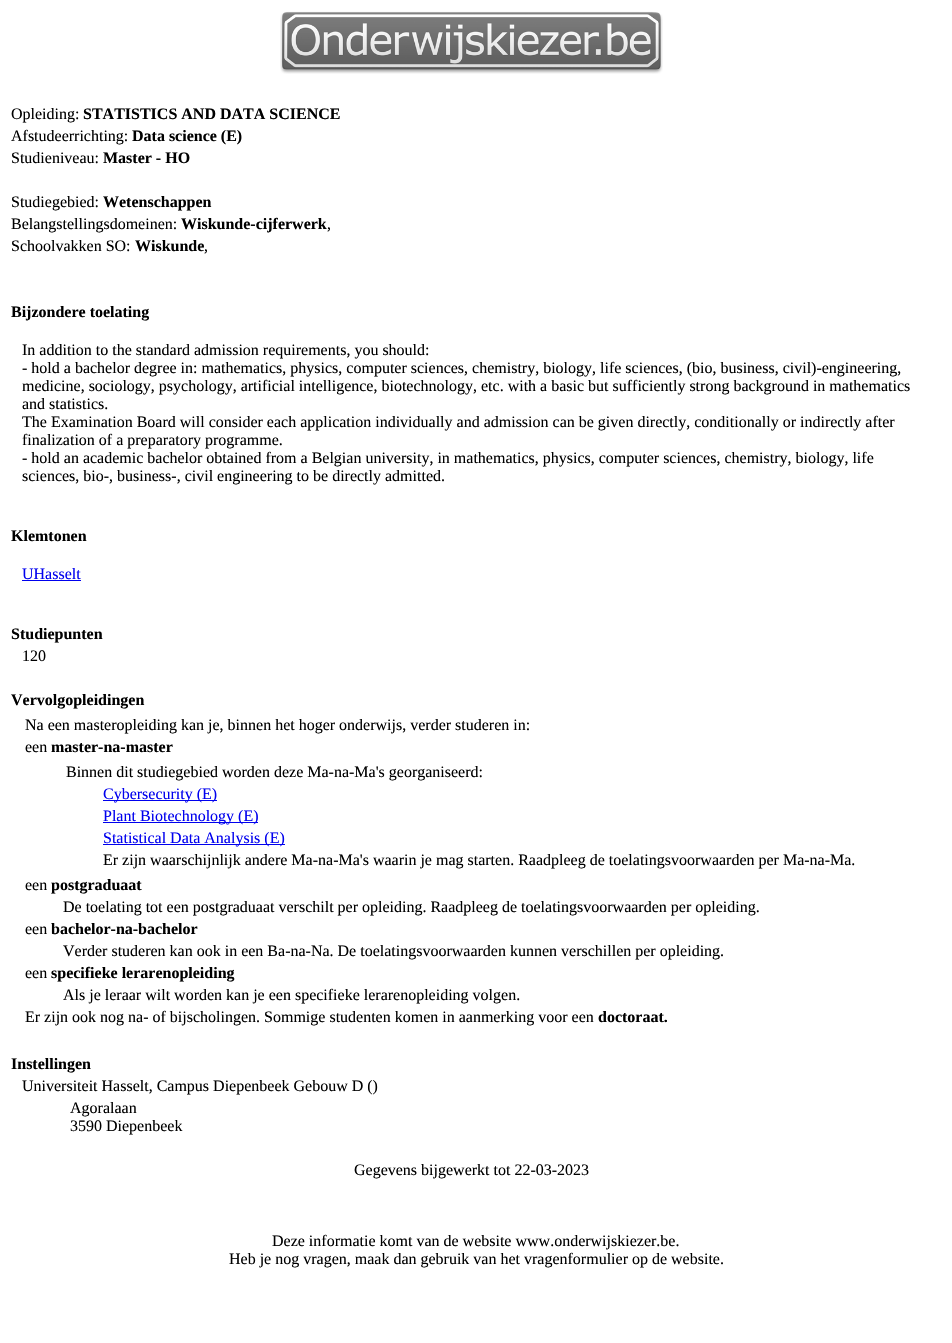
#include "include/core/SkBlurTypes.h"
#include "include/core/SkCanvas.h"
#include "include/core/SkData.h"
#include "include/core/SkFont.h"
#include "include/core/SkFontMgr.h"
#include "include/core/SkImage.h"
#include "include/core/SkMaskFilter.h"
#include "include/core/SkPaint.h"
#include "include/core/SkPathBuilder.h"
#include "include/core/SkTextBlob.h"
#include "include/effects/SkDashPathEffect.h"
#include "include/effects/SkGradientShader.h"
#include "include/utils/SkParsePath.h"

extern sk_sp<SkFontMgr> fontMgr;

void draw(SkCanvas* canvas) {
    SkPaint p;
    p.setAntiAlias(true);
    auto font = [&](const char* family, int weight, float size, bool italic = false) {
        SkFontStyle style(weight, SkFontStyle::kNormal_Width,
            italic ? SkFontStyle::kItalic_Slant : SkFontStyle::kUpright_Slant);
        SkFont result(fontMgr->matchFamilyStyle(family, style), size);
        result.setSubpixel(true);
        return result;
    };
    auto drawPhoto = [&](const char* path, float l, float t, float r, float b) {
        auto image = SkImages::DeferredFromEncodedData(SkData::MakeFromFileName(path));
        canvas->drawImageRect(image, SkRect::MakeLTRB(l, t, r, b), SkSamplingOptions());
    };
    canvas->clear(0xFFFFFFFF);
    drawPhoto("media/1.png", 280, 11, 663, 74);
    auto font1 = font("Liberation Serif", 400, 16);
    p.setColor(0xFF000000);
    canvas->drawString("Opleiding:", 11, 119, font1, p);
    auto font2 = font("Liberation Serif", 700, 16);
    canvas->drawString("STATISTICS AND DATA SCIENCE", 83, 119, font2, p);
    canvas->drawString("Afstudeerrichting:", 11, 141, font1, p);
    canvas->drawString("Data science (E)", 132, 141, font2, p);
    canvas->drawString("Studieniveau:", 11, 163, font1, p);
    canvas->drawString("Master - HO", 103, 163, font2, p);
    canvas->drawString("Studiegebied:", 11, 207, font1, p);
    canvas->drawString("Wetenschappen", 103, 207, font2, p);
    canvas->drawString("Belangstellingsdomeinen:", 11, 229, font1, p);
    canvas->drawString("Wiskunde-cijferwerk", 181, 229, font2, p);
    canvas->drawString(",", 327, 229, font1, p);
    canvas->drawString("Schoolvakken SO:", 11, 251, font1, p);
    canvas->drawString("Wiskunde", 135, 251, font2, p);
    canvas->drawString(",", 204, 251, font1, p);
    canvas->drawString("Bijzondere toelating", 11, 317, font2, p);
    {
        const struct { const char* s; float x, y; } items[] = {
            {"In addition to the standard admission requirements, you should:", 22, 355},
            {"- hold a bachelor degree in: mathematics, physics, computer sciences, chemistry, biology, life sciences, (bio, business, civil)-engineering,", 22, 373},
            {"medicine, sociology, psychology, artificial intelligence, biotechnology, etc. with a basic but sufficiently strong background in mathematics", 22, 391},
            {"and statistics.", 22, 409},
            {"The Examination Board will consider each application individually and admission can be given directly, conditionally or indirectly after", 22, 427},
            {"finalization of a preparatory programme.", 22, 445},
            {"- hold an academic bachelor obtained from a Belgian university, in mathematics, physics, computer sciences, chemistry, biology, life", 22, 463},
            {"sciences, bio-, business-, civil engineering to be directly admitted.", 22, 481},
        };
        for (auto [s, x, y] : items) {
            canvas->drawString(s, x, y, font1, p);
        }
    }
    canvas->drawString("Klemtonen", 11, 541, font2, p);
    p.setColor(0xFF0000EE);
    canvas->drawString("UHasselt", 22, 579, font1, p);
    canvas->drawRect(SkRect::MakeLTRB(22, 580, 81, 581), p);
    p.setColor(0xFF000000);
    canvas->drawString("Studiepunten", 11, 639, font2, p);
    canvas->drawString("120", 22, 661, font1, p);
    canvas->drawString("Vervolgopleidingen", 11, 705, font2, p);
    canvas->drawString("Na een masteropleiding kan je, binnen het hoger onderwijs, verder studeren in:", 25, 730, font1, p);
    canvas->drawString("een", 25, 752, font1, p);
    canvas->drawString("master-na-master", 51, 752, font2, p);
    canvas->drawString("Binnen dit studiegebied worden deze Ma-na-Ma's georganiseerd:", 66, 777, font1, p);
    p.setColor(0xFF0000EE);
    canvas->drawRect(SkRect::MakeLTRB(103, 800, 217, 801), p);
    canvas->drawString("Cybersecurity (E)", 103, 799, font1, p);
    canvas->drawRect(SkRect::MakeLTRB(103, 822, 258, 823), p);
    canvas->drawString("Plant Biotechnology (E)", 103, 821, font1, p);
    canvas->drawRect(SkRect::MakeLTRB(103, 844, 285, 845), p);
    canvas->drawString("Statistical Data Analysis (E)", 103, 843, font1, p);
    p.setColor(0xFF000000);
    canvas->drawString("Er zijn waarschijnlijk andere Ma-na-Ma's waarin je mag starten. Raadpleeg de toelatingsvoorwaarden per Ma-na-Ma.", 103, 865, font1, p);
    canvas->drawString("een", 25, 890, font1, p);
    canvas->drawString("postgraduaat", 51, 890, font2, p);
    canvas->drawString("De toelating tot een postgraduaat verschilt per opleiding. Raadpleeg de toelatingsvoorwaarden per opleiding.", 63, 912, font1, p);
    canvas->drawString("een", 25, 934, font1, p);
    canvas->drawString("bachelor-na-bachelor", 51, 934, font2, p);
    canvas->drawString("Verder studeren kan ook in een Ba-na-Na. De toelatingsvoorwaarden kunnen verschillen per opleiding.", 63, 956, font1, p);
    canvas->drawString("een", 25, 978, font1, p);
    canvas->drawString("specifieke lerarenopleiding", 51, 978, font2, p);
    canvas->drawString("Als je leraar wilt worden kan je een specifieke lerarenopleiding volgen.", 63, 1000, font1, p);
    canvas->drawString("Er zijn ook nog na- of bijscholingen. Sommige studenten komen in aanmerking voor een", 25, 1022, font1, p);
    canvas->drawString("doctoraat.", 598, 1022, font2, p);
    canvas->drawString("Instellingen", 11, 1069, font2, p);
    {
        const struct { const char* s; float x, y; } items[] = {
            {"Universiteit Hasselt, Campus Diepenbeek Gebouw D ()", 22, 1091},
            {"Agoralaan", 70, 1113},
            {"3590 Diepenbeek", 70, 1131},
            {"Gegevens bijgewerkt tot 22-03-2023", 354, 1175},
            {"Deze informatie komt van de website www.onderwijskiezer.be.", 272, 1246},
            {"Heb je nog vragen, maak dan gebruik van het vragenformulier op de website.", 229, 1264},
        };
        for (auto [s, x, y] : items) {
            canvas->drawString(s, x, y, font1, p);
        }
    }
}
